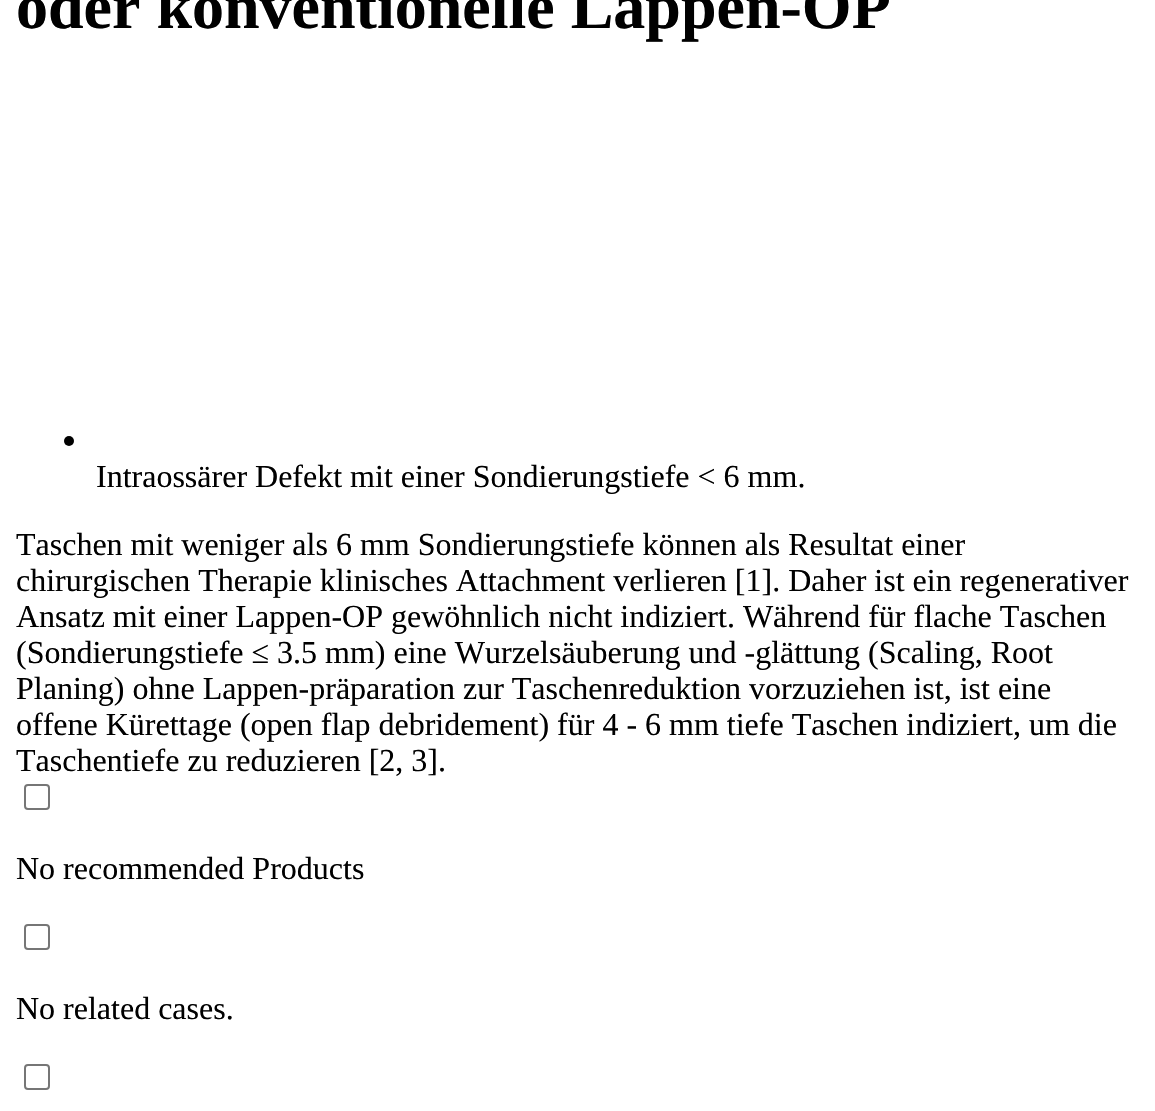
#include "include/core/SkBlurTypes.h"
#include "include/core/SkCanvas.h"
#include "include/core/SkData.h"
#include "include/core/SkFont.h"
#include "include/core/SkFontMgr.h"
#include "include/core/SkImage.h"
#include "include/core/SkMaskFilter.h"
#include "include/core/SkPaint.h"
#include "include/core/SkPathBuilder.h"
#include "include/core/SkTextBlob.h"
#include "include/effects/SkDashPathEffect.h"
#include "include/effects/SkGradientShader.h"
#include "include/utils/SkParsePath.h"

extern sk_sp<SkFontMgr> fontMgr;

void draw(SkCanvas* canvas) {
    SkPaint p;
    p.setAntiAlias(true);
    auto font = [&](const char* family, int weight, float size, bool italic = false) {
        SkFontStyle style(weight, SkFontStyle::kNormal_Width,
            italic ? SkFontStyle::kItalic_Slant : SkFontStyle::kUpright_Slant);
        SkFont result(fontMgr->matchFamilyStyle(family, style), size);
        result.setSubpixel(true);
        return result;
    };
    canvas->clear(0xFFFFFFFF);
    auto font1 = font("Liberation Serif", 700, 64);
    p.setColor(0xFF000000);
    canvas->drawString("oder konventionelle Lappen-OP", 16, 28, font1, p);
    canvas->drawCircle(69, 441, 5, p);
    auto font2 = font("Liberation Serif", 400, 32);
    {
        const struct { const char* s; float x, y; } items[] = {
            {"Intraossärer Defekt mit einer Sondierungstiefe < 6 mm.", 96, 487},
            {"Taschen mit weniger als 6 mm Sondierungstiefe können als Resultat einer", 16, 555},
            {"chirurgischen Therapie klinisches Attachment verlieren [1]. Daher ist ein regenerativer", 16, 591},
            {"Ansatz mit einer Lappen-OP gewöhnlich nicht indiziert. Während für flache Taschen", 16, 627},
            {"(Sondierungstiefe ≤ 3.5 mm) eine Wurzelsäuberung und -glättung (Scaling, Root", 16, 663},
            {"Planing) ohne Lappen-präparation zur Taschenreduktion vorzuziehen ist, ist eine", 16, 699},
            {"offene Kürettage (open flap debridement) für 4 - 6 mm tiefe Taschen indiziert, um die", 16, 735},
            {"Taschentiefe zu reduzieren [2, 3].", 16, 771},
        };
        for (auto [s, x, y] : items) {
            canvas->drawString(s, x, y, font2, p);
        }
    }
    p.setStyle(SkPaint::kStroke_Style);
    p.setStrokeWidth(2);
    p.setColor(0xFF767676);
    canvas->drawRoundRect(SkRect::MakeLTRB(25, 785, 49, 809), 3, 3, p);
    p.setStyle(SkPaint::kFill_Style);
    p.setColor(0xFF000000);
    canvas->drawString("No recommended Products", 16, 879, font2, p);
    p.setStyle(SkPaint::kStroke_Style);
    p.setColor(0xFF767676);
    canvas->drawRoundRect(SkRect::MakeLTRB(25, 925, 49, 949), 3, 3, p);
    p.setStyle(SkPaint::kFill_Style);
    p.setColor(0xFF000000);
    canvas->drawString("No related cases.", 16, 1019, font2, p);
    p.setStyle(SkPaint::kStroke_Style);
    p.setColor(0xFF767676);
    canvas->drawRoundRect(SkRect::MakeLTRB(25, 1065, 49, 1089), 3, 3, p);
}
